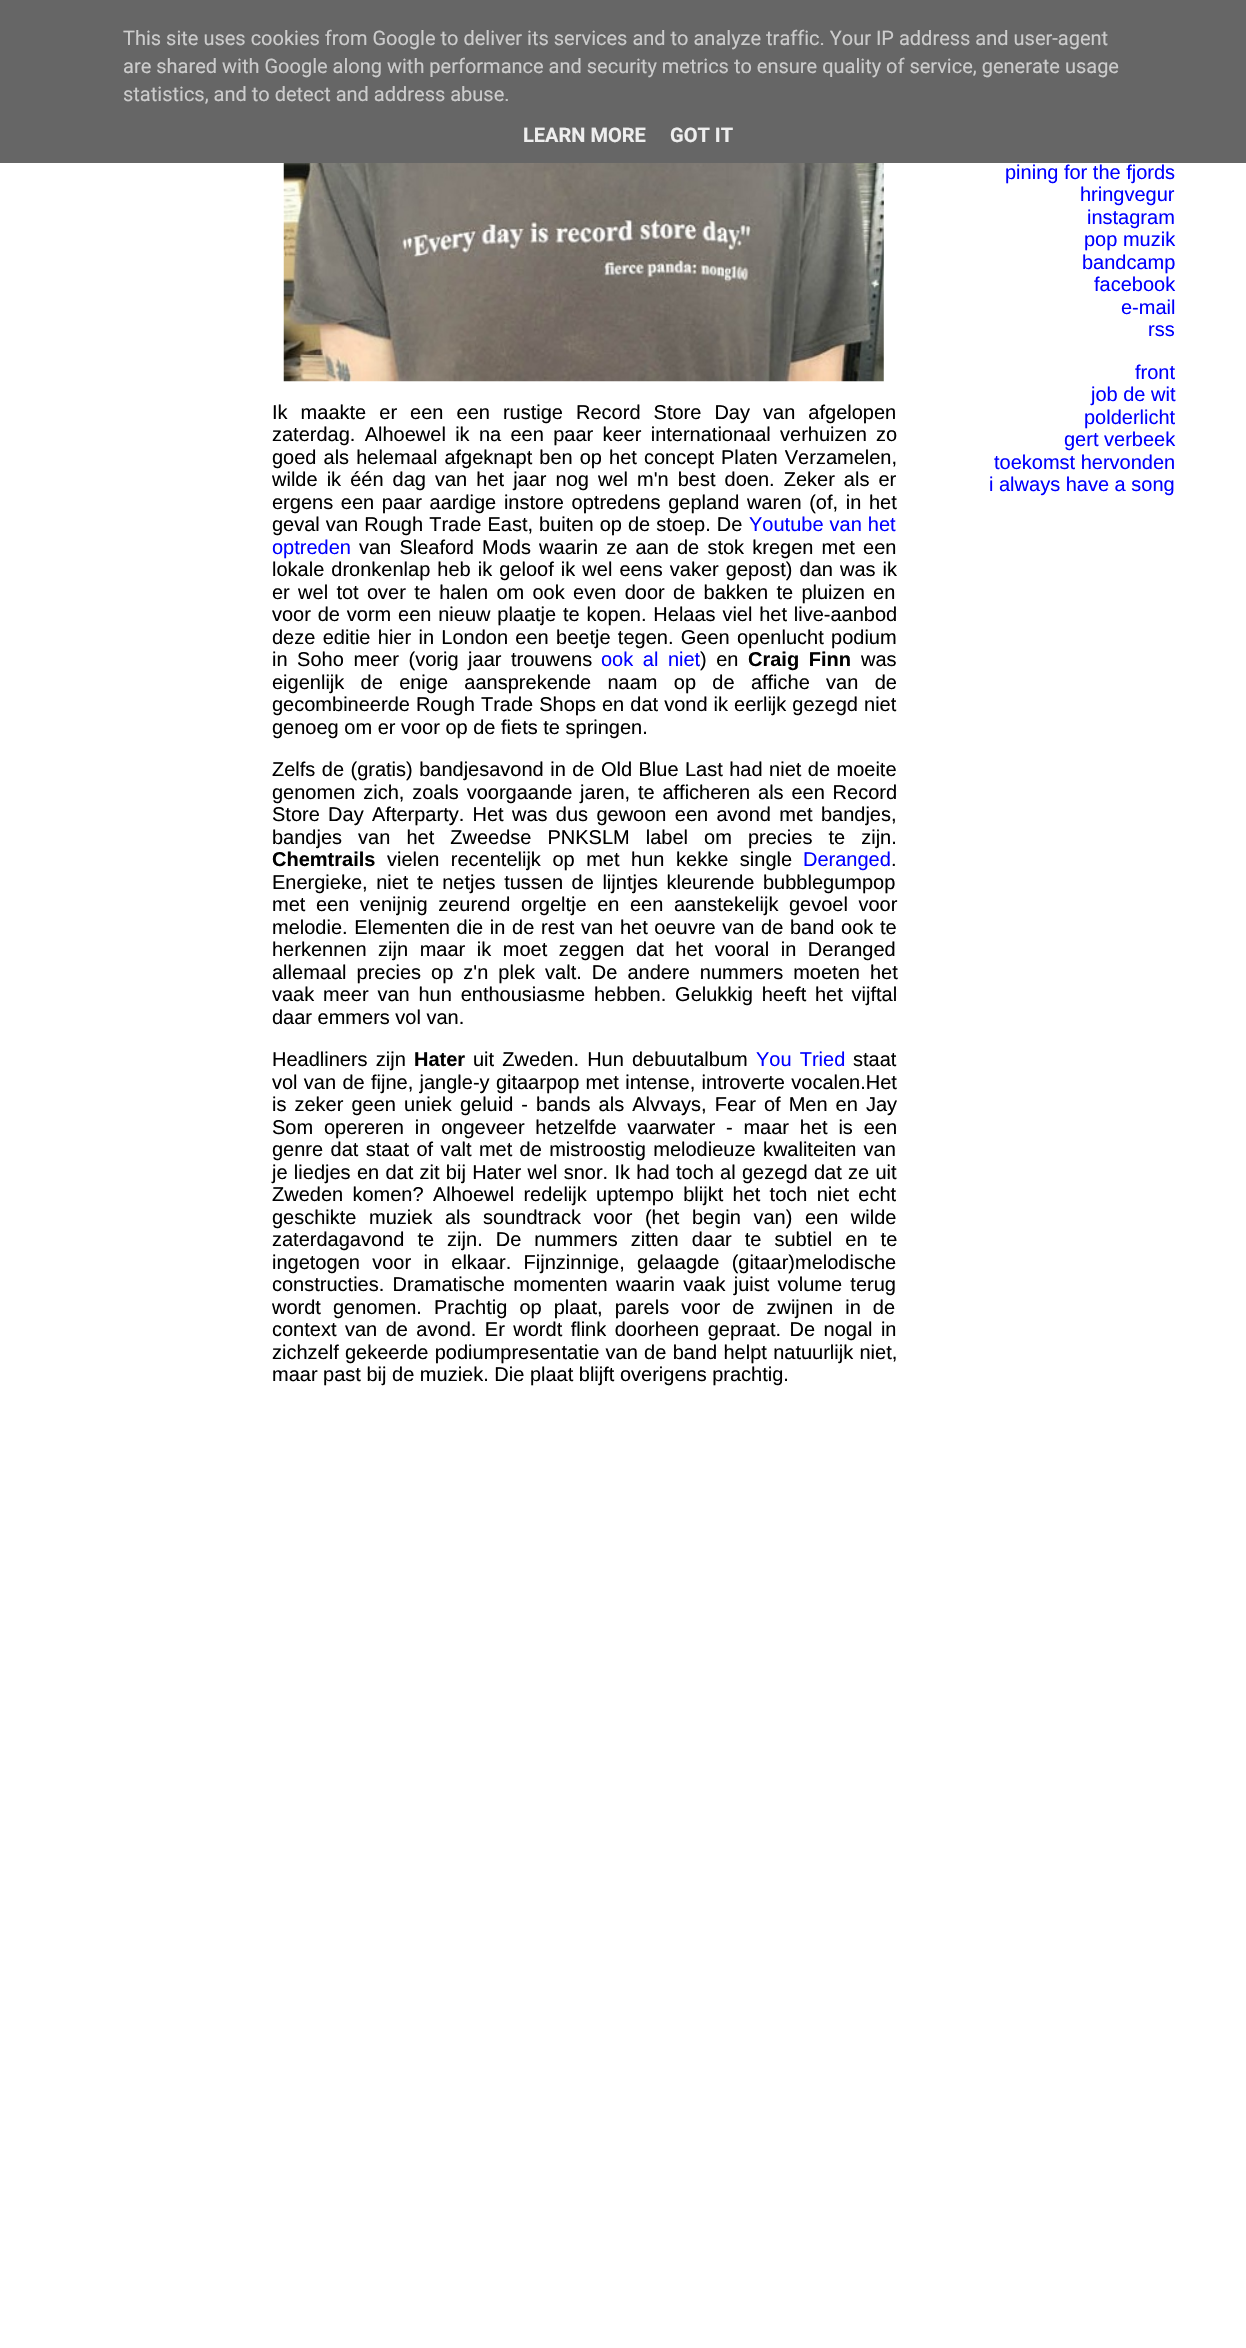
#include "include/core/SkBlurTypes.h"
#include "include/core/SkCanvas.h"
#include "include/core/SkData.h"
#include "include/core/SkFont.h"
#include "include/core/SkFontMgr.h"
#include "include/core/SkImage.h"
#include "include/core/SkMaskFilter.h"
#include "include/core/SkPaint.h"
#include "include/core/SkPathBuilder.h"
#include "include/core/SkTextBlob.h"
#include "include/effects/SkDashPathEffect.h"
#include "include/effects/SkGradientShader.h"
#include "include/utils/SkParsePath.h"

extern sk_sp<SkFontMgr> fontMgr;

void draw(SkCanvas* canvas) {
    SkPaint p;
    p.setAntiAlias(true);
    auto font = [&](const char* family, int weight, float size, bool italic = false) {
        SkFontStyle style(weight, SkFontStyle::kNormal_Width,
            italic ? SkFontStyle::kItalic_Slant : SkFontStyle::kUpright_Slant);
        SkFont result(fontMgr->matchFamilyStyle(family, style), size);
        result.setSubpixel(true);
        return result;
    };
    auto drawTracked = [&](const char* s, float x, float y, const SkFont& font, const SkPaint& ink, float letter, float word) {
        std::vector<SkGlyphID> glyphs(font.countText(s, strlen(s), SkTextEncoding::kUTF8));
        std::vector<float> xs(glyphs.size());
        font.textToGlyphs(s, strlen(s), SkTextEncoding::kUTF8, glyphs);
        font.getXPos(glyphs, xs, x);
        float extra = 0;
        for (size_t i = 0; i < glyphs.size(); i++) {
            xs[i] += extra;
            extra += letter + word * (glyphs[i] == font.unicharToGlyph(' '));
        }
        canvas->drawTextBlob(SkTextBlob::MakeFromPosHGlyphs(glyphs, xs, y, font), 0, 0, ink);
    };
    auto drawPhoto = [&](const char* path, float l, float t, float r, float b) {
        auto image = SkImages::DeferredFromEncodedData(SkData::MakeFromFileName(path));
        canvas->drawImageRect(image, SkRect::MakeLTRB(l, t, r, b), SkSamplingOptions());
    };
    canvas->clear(0xFFFFFFFF);
    p.setColor(0xFF666666);
    canvas->drawRect(SkRect::MakeLTRB(0, 0, 1246, 163), p);
    auto font1 = font("Roboto", 400, 20);
    p.setColor(0xFFCCCCCC);
    {
        const struct { const char* s; float x, y; } items[] = {
            {"This site uses cookies from Google to deliver its services and to analyze traffic. Your IP address and user-agent", 123, 45},
            {"are shared with Google along with performance and security metrics to ensure quality of service, generate usage", 123, 73},
            {"statistics, and to detect and address abuse.", 123, 101},
        };
        for (auto [s, x, y] : items) {
            canvas->drawString(s, x, y, font1, p);
        }
    }
    auto font2 = font("Roboto", 700, 20);
    p.setColor(0xFFEEEEEE);
    canvas->drawString("LEARN MORE", 523, 142, font2, p);
    canvas->drawString("GOT IT", 670, 142, font2, p);
    auto font3 = font("Liberation Sans", 400, 20);
    p.setColor(0xFF0000FF);
    {
        const struct { const char* s; float x, y; } items[] = {
            {"pining for the fjords", 1005, 179},
            {"hringvegur", 1080, 201},
            {"instagram", 1087, 224},
            {"pop muzik", 1084, 246},
            {"bandcamp", 1082, 269},
            {"facebook", 1094, 291},
            {"e-mail", 1121, 314},
            {"rss", 1148, 336},
            {"front", 1135, 379},
            {"job de wit", 1091, 401},
            {"polderlicht", 1084, 424},
            {"gert verbeek", 1064, 446},
            {"toekomst hervonden", 994, 469},
            {"i always have a song", 989, 491},
        };
        for (auto [s, x, y] : items) {
            canvas->drawString(s, x, y, font3, p);
        }
    }
    drawPhoto("media/1.png", 283, 163, 884, 382);
    p.setColor(0xFF000000);
    drawTracked("Ik maakte er een een rustige Record Store Day van afgelopen", 272, 419, font3, p, 0, 7.5f);
    drawTracked("zaterdag. Alhoewel ik na een paar keer internationaal verhuizen zo", 272, 441, font3, p, 0, 3.75f);
    drawTracked("goed als helemaal afgeknapt ben op het concept Platen Verzamelen,", 272, 464, font3, p, 0, 1.5f);
    drawTracked("wilde ik één dag van het jaar nog wel m'n best doen. Zeker als er", 272, 486, font3, p, 0, 3.5f);
    drawTracked("ergens een paar aardige instore optredens gepland waren (of, in het", 272, 509, font3, p, 0, 2.1f);
    drawTracked("geval van Rough Trade East, buiten op de stoep. De", 272, 531, font3, p, 0, 0.5f);
    p.setColor(0xFF0000FF);
    drawTracked("Youtube van het", 749, 531, font3, p, 0, 0.5f);
    canvas->drawString("optreden", 272, 554, font3, p);
    p.setColor(0xFF000000);
    drawTracked("van Sleaford Mods waarin ze aan de stok kregen met een", 359, 554, font3, p, 0, 2.6f);
    drawTracked("lokale dronkenlap heb ik geloof ik wel eens vaker gepost) dan was ik", 272, 576, font3, p, 0, 1.5f);
    drawTracked("er wel tot over te halen om ook even door de bakken te pluizen en", 272, 599, font3, p, 0, 2.75f);
    drawTracked("voor de vorm een nieuw plaatje te kopen. Helaas viel het live-aanbod", 272, 621, font3, p, 0, 1.25f);
    drawTracked("deze editie hier in London een beetje tegen. Geen openlucht podium", 272, 644, font3, p, 0, 1.75f);
    drawTracked("in Soho meer (vorig jaar trouwens", 272, 666, font3, p, 0, 4);
    p.setColor(0xFF0000FF);
    drawTracked("ook al niet", 601, 666, font3, p, 0, 4);
    p.setColor(0xFF000000);
    drawTracked(") en", 700, 666, font3, p, 0, 4);
    auto font4 = font("Liberation Sans", 700, 20);
    drawTracked("Craig Finn", 748, 666, font4, p, 0, 4);
    canvas->drawString("was", 861, 666, font3, p);
    drawTracked("eigenlijk de enige aansprekende naam op de affiche van de", 272, 689, font3, p, 0, 10.75f);
    drawTracked("gecombineerde Rough Trade Shops en dat vond ik eerlijk gezegd niet", 272, 711, font3, p, 0, 0.5f);
    canvas->drawString("genoeg om er voor op de fiets te springen.", 272, 734, font3, p);
    drawTracked("Zelfs de (gratis) bandjesavond in de Old Blue Last had niet de moeite", 272, 776, font3, p, 0, 0.9f);
    drawTracked("genomen zich, zoals voorgaande jaren, te afficheren als een Record", 272, 799, font3, p, 0, 2.25f);
    drawTracked("Store Day Afterparty. Het was dus gewoon een avond met bandjes,", 272, 821, font3, p, 0, 2.75f);
    drawTracked("bandjes van het Zweedse PNKSLM label om precies te zijn.", 272, 844, font3, p, 0, 10.5f);
    canvas->drawString("Chemtrails", 272, 866, font4, p);
    drawTracked("vielen recentelijk op met hun kekke single", 387, 866, font3, p, 0, 6);
    p.setColor(0xFF0000FF);
    canvas->drawString("Deranged", 803, 866, font3, p);
    p.setColor(0xFF000000);
    canvas->drawString(".", 891, 866, font3, p);
    drawTracked("Energieke, niet te netjes tussen de lijntjes kleurende bubblegumpop", 272, 889, font3, p, 0, 3);
    drawTracked("met een venijnig zeurend orgeltje en een aanstekelijk gevoel voor", 272, 911, font3, p, 0, 5);
    drawTracked("melodie. Elementen die in de rest van het oeuvre van de band ook te", 272, 934, font3, p, 0, 1.1f);
    drawTracked("herkennen zijn maar ik moet zeggen dat het vooral in Deranged", 272, 956, font3, p, 0, 6);
    drawTracked("allemaal precies op z'n plek valt. De andere nummers moeten het", 272, 979, font3, p, 0, 4.5f);
    drawTracked("vaak meer van hun enthousiasme hebben. Gelukkig heeft het vijftal", 272, 1001, font3, p, 0, 3.25f);
    canvas->drawString("daar emmers vol van.", 272, 1024, font3, p);
    drawTracked("Headliners zijn", 272, 1066, font3, p, 0, 2.6f);
    canvas->drawString("Hater", 414, 1066, font4, p);
    drawTracked("uit Zweden. Hun debuutalbum", 473, 1066, font3, p, 0, 2.6f);
    p.setColor(0xFF0000FF);
    drawTracked("You Tried", 756, 1066, font3, p, 0, 2.6f);
    p.setColor(0xFF000000);
    canvas->drawString("staat", 853, 1066, font3, p);
    drawTracked("vol van de fijne, jangle-y gitaarpop met intense, introverte vocalen.Het", 272, 1089, font3, p, 0, 0.75f);
    drawTracked("is zeker geen uniek geluid - bands als Alvvays, Fear of Men en Jay", 272, 1111, font3, p, 0, 2.5f);
    drawTracked("Som opereren in ongeveer hetzelfde vaarwater - maar het is een", 272, 1134, font3, p, 0, 5.25f);
    drawTracked("genre dat staat of valt met de mistroostig melodieuze kwaliteiten van", 272, 1156, font3, p, 0, 1.8f);
    drawTracked("je liedjes en dat zit bij Hater wel snor. Ik had toch al gezegd dat ze uit", 272, 1179, font3, p, 0, 0.75f);
    drawTracked("Zweden komen? Alhoewel redelijk uptempo blijkt het toch niet echt", 272, 1201, font3, p, 0, 3.75f);
    drawTracked("geschikte muziek als soundtrack voor (het begin van) een wilde", 272, 1224, font3, p, 0, 7);
    drawTracked("zaterdagavond te zijn. De nummers zitten daar te subtiel en te", 272, 1246, font3, p, 0, 7.5f);
    drawTracked("ingetogen voor in elkaar. Fijnzinnige, gelaagde (gitaar)melodische", 272, 1269, font3, p, 0, 6.75f);
    drawTracked("constructies. Dramatische momenten waarin vaak juist volume terug", 272, 1291, font3, p, 0, 2.75f);
    drawTracked("wordt genomen. Prachtig op plaat, parels voor de zwijnen in de", 272, 1314, font3, p, 0, 6.5f);
    drawTracked("context van de avond. Er wordt flink doorheen gepraat. De nogal in", 272, 1336, font3, p, 0, 2.9f);
    drawTracked("zichzelf gekeerde podiumpresentatie van de band helpt natuurlijk niet,", 272, 1359, font3, p, 0, 0.75f);
    canvas->drawString("maar past bij de muziek. Die plaat blijft overigens prachtig.", 272, 1381, font3, p);
}
